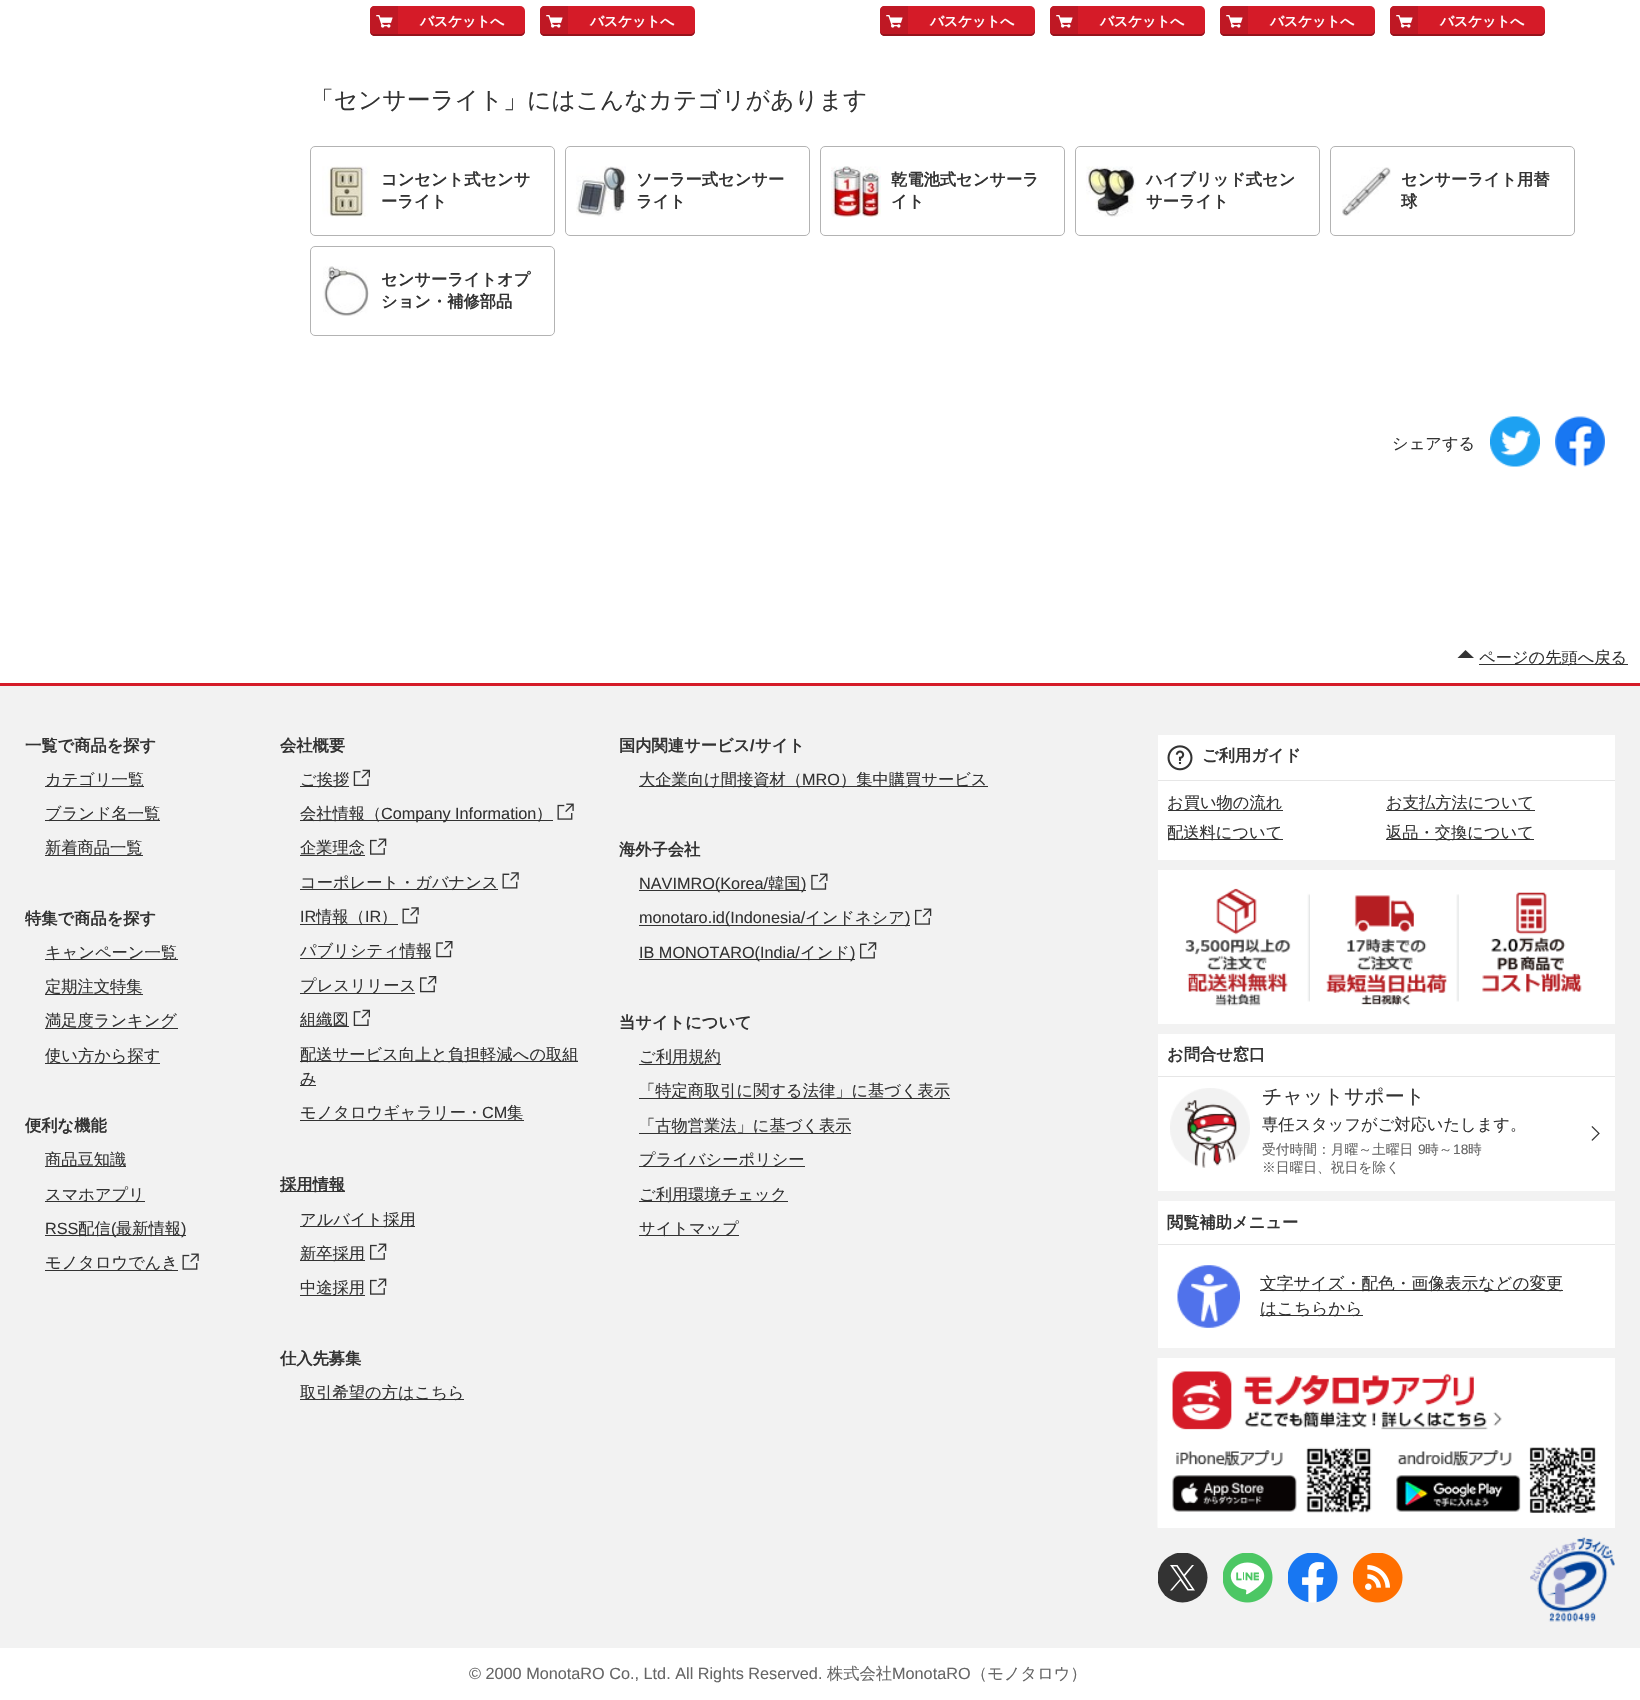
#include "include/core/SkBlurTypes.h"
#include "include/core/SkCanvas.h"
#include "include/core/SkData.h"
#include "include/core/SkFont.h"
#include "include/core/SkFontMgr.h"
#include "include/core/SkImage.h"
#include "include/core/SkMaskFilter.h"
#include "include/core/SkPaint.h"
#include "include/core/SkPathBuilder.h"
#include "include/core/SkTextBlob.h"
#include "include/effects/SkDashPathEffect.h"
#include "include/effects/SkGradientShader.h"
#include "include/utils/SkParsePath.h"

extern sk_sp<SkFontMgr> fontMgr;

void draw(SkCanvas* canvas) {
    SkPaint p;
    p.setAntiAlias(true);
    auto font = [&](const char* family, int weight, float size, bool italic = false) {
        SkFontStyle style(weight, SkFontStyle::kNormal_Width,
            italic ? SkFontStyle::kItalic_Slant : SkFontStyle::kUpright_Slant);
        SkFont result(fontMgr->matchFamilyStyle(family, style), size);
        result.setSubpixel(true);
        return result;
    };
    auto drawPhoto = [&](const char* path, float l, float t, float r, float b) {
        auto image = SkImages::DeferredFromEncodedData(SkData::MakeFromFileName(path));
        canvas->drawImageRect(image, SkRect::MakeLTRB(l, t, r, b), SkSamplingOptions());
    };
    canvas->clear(0xFFFFFFFF);
    p.setColor(0xFFD51B28);
    canvas->drawRoundRect(SkRect::MakeLTRB(370, 6, 525, 36), 5, 5, p);
    p.setColor(0xFF95131C);
    canvas->drawPath(SkPathBuilder().moveTo(370, 29).lineTo(370, 31).cubicTo(370, 34, 372, 36, 375, 36).lineTo(520, 36).cubicTo(523, 36, 525, 34, 525, 31).lineTo(525, 29).cubicTo(525, 32, 523, 34, 520, 34).lineTo(375, 34).cubicTo(372, 34, 370, 32, 370, 29).close().detach(), p);
    p.setColor(0xFFBF1824);
    canvas->drawPath(SkPathBuilder().moveTo(374, 6).lineTo(398, 6).lineTo(398, 34).lineTo(374, 34).cubicTo(372, 34, 370, 32, 370, 30).lineTo(370, 10).cubicTo(370, 8, 372, 6, 374, 6).close().detach(), p);
    drawPhoto("media/1.png", 376, 15, 393, 28);
    auto font1 = font("WenQuanYi Zen Hei", 700, 13.75f);
    p.setColor(0xFFFFFFFF);
    canvas->drawString("バスケットへ", 420, 26, font1, p);
    p.setColor(0xFFD51B28);
    canvas->drawRoundRect(SkRect::MakeLTRB(540, 6, 695, 36), 5, 5, p);
    p.setColor(0xFF95131C);
    canvas->drawPath(SkPathBuilder().moveTo(540, 29).lineTo(540, 31).cubicTo(540, 34, 542, 36, 545, 36).lineTo(690, 36).cubicTo(693, 36, 695, 34, 695, 31).lineTo(695, 29).cubicTo(695, 32, 693, 34, 690, 34).lineTo(545, 34).cubicTo(542, 34, 540, 32, 540, 29).close().detach(), p);
    p.setColor(0xFFBF1824);
    canvas->drawPath(SkPathBuilder().moveTo(544, 6).lineTo(568, 6).lineTo(568, 34).lineTo(544, 34).cubicTo(542, 34, 540, 32, 540, 30).lineTo(540, 10).cubicTo(540, 8, 542, 6, 544, 6).close().detach(), p);
    drawPhoto("media/1.png", 546, 15, 563, 28);
    p.setColor(0xFFFFFFFF);
    canvas->drawString("バスケットへ", 590, 26, font1, p);
    p.setColor(0xFFD51B28);
    canvas->drawRoundRect(SkRect::MakeLTRB(880, 6, 1035, 36), 5, 5, p);
    p.setColor(0xFF95131C);
    canvas->drawPath(SkPathBuilder().moveTo(880, 29).lineTo(880, 31).cubicTo(880, 34, 882, 36, 885, 36).lineTo(1030, 36).cubicTo(1033, 36, 1035, 34, 1035, 31).lineTo(1035, 29).cubicTo(1035, 32, 1033, 34, 1030, 34).lineTo(885, 34).cubicTo(882, 34, 880, 32, 880, 29).close().detach(), p);
    p.setColor(0xFFBF1824);
    canvas->drawPath(SkPathBuilder().moveTo(884, 6).lineTo(908, 6).lineTo(908, 34).lineTo(884, 34).cubicTo(882, 34, 880, 32, 880, 30).lineTo(880, 10).cubicTo(880, 8, 882, 6, 884, 6).close().detach(), p);
    drawPhoto("media/1.png", 886, 15, 903, 28);
    p.setColor(0xFFFFFFFF);
    canvas->drawString("バスケットへ", 930, 26, font1, p);
    p.setColor(0xFFD51B28);
    canvas->drawRoundRect(SkRect::MakeLTRB(1050, 6, 1205, 36), 5, 5, p);
    p.setColor(0xFF95131C);
    canvas->drawPath(SkPathBuilder().moveTo(1050, 29).lineTo(1050, 31).cubicTo(1050, 34, 1052, 36, 1055, 36).lineTo(1200, 36).cubicTo(1203, 36, 1205, 34, 1205, 31).lineTo(1205, 29).cubicTo(1205, 32, 1203, 34, 1200, 34).lineTo(1055, 34).cubicTo(1052, 34, 1050, 32, 1050, 29).close().detach(), p);
    p.setColor(0xFFBF1824);
    canvas->drawPath(SkPathBuilder().moveTo(1054, 6).lineTo(1078, 6).lineTo(1078, 34).lineTo(1054, 34).cubicTo(1052, 34, 1050, 32, 1050, 30).lineTo(1050, 10).cubicTo(1050, 8, 1052, 6, 1054, 6).close().detach(), p);
    drawPhoto("media/1.png", 1056, 15, 1073, 28);
    p.setColor(0xFFFFFFFF);
    canvas->drawString("バスケットへ", 1100, 26, font1, p);
    p.setColor(0xFFD51B28);
    canvas->drawRoundRect(SkRect::MakeLTRB(1220, 6, 1375, 36), 5, 5, p);
    p.setColor(0xFF95131C);
    canvas->drawPath(SkPathBuilder().moveTo(1220, 29).lineTo(1220, 31).cubicTo(1220, 34, 1222, 36, 1225, 36).lineTo(1370, 36).cubicTo(1373, 36, 1375, 34, 1375, 31).lineTo(1375, 29).cubicTo(1375, 32, 1373, 34, 1370, 34).lineTo(1225, 34).cubicTo(1222, 34, 1220, 32, 1220, 29).close().detach(), p);
    p.setColor(0xFFBF1824);
    canvas->drawPath(SkPathBuilder().moveTo(1224, 6).lineTo(1248, 6).lineTo(1248, 34).lineTo(1224, 34).cubicTo(1222, 34, 1220, 32, 1220, 30).lineTo(1220, 10).cubicTo(1220, 8, 1222, 6, 1224, 6).close().detach(), p);
    drawPhoto("media/1.png", 1226, 15, 1243, 28);
    p.setColor(0xFFFFFFFF);
    canvas->drawString("バスケットへ", 1270, 26, font1, p);
    p.setColor(0xFFD51B28);
    canvas->drawRoundRect(SkRect::MakeLTRB(1390, 6, 1545, 36), 5, 5, p);
    p.setColor(0xFF95131C);
    canvas->drawPath(SkPathBuilder().moveTo(1390, 29).lineTo(1390, 31).cubicTo(1390, 34, 1392, 36, 1395, 36).lineTo(1540, 36).cubicTo(1543, 36, 1545, 34, 1545, 31).lineTo(1545, 29).cubicTo(1545, 32, 1543, 34, 1540, 34).lineTo(1395, 34).cubicTo(1392, 34, 1390, 32, 1390, 29).close().detach(), p);
    p.setColor(0xFFBF1824);
    canvas->drawPath(SkPathBuilder().moveTo(1394, 6).lineTo(1418, 6).lineTo(1418, 34).lineTo(1394, 34).cubicTo(1392, 34, 1390, 32, 1390, 30).lineTo(1390, 10).cubicTo(1390, 8, 1392, 6, 1394, 6).close().detach(), p);
    drawPhoto("media/1.png", 1396, 15, 1413, 28);
    p.setColor(0xFFFFFFFF);
    canvas->drawString("バスケットへ", 1440, 26, font1, p);
    auto font2 = font("WenQuanYi Zen Hei", 500, 23.75f);
    p.setColor(0xFF333333);
    canvas->drawString("「センサーライト」にはこんなカテゴリがあります", 310, 108, font2, p);
    p.setStyle(SkPaint::kStroke_Style);
    p.setStrokeWidth(1);
    p.setColor(0xFFB3B3B3);
    canvas->drawRoundRect(SkRect::MakeLTRB(310.5f, 146.5f, 554.5f, 235.5f), 4.5f, 4.5f, p);
    drawPhoto("media/2.png", 322, 166, 370, 217);
    auto font3 = font("WenQuanYi Zen Hei", 700, 16.25f);
    p.setStyle(SkPaint::kFill_Style);
    p.setColor(0xFF333333);
    canvas->drawString("コンセント式センサ", 381, 185, font3, p);
    canvas->drawString("ーライト", 381, 207, font3, p);
    p.setStyle(SkPaint::kStroke_Style);
    p.setColor(0xFFB3B3B3);
    canvas->drawRoundRect(SkRect::MakeLTRB(565.5f, 146.5f, 809.5f, 235.5f), 4.5f, 4.5f, p);
    drawPhoto("media/3.png", 576, 166, 626, 217);
    p.setStyle(SkPaint::kFill_Style);
    p.setColor(0xFF333333);
    canvas->drawString("ソーラー式センサー", 636, 185, font3, p);
    canvas->drawString("ライト", 636, 207, font3, p);
    p.setStyle(SkPaint::kStroke_Style);
    p.setColor(0xFFB3B3B3);
    canvas->drawRoundRect(SkRect::MakeLTRB(820.5f, 146.5f, 1064.5f, 235.5f), 4.5f, 4.5f, p);
    drawPhoto("media/4.png", 831, 166, 881, 217);
    p.setStyle(SkPaint::kFill_Style);
    p.setColor(0xFF333333);
    canvas->drawString("乾電池式センサーラ", 891, 185, font3, p);
    canvas->drawString("イト", 891, 207, font3, p);
    p.setStyle(SkPaint::kStroke_Style);
    p.setColor(0xFFB3B3B3);
    canvas->drawRoundRect(SkRect::MakeLTRB(1075.5f, 146.5f, 1319.5f, 235.5f), 4.5f, 4.5f, p);
    drawPhoto("media/5.png", 1086, 166, 1136, 217);
    p.setStyle(SkPaint::kFill_Style);
    p.setColor(0xFF333333);
    canvas->drawString("ハイブリッド式セン", 1146, 185, font3, p);
    canvas->drawString("サーライト", 1146, 207, font3, p);
    p.setStyle(SkPaint::kStroke_Style);
    p.setColor(0xFFB3B3B3);
    canvas->drawRoundRect(SkRect::MakeLTRB(1330.5f, 146.5f, 1574.5f, 235.5f), 4.5f, 4.5f, p);
    drawPhoto("media/6.png", 1342, 167, 1391, 216);
    p.setStyle(SkPaint::kFill_Style);
    p.setColor(0xFF333333);
    canvas->drawString("センサーライト用替", 1401, 185, font3, p);
    canvas->drawString("球", 1401, 207, font3, p);
    p.setStyle(SkPaint::kStroke_Style);
    p.setColor(0xFFB3B3B3);
    canvas->drawRoundRect(SkRect::MakeLTRB(310.5f, 246.5f, 554.5f, 335.5f), 4.5f, 4.5f, p);
    drawPhoto("media/7.png", 323, 266, 369, 316);
    p.setStyle(SkPaint::kFill_Style);
    p.setColor(0xFF333333);
    canvas->drawString("センサーライトオプ", 381, 285, font3, p);
    canvas->drawString("ション・補修部品", 381, 307, font3, p);
    auto font4 = font("WenQuanYi Zen Hei", 500, 16.25f);
    canvas->drawString("シェアする", 1392, 449, font4, p);
    drawPhoto("media/8.png", 1490, 416, 1540, 467);
    drawPhoto("media/9.png", 1555, 416, 1605, 467);
    canvas->drawRect(SkRect::MakeLTRB(1479, 664, 1628, 665), p);
    canvas->drawString("ページの先頭へ戻る", 1479, 663, font4, p);
    canvas->drawPath(SkPathBuilder().moveTo(1465.5f, 650).lineTo(1457.5f, 658).lineTo(1474, 658).close().detach(), p);
    p.setColor(0xFFF2F2F2);
    canvas->drawRect(SkRect::MakeLTRB(0, 686, 1640, 1648), p);
    p.setColor(0xFFD51B28);
    canvas->drawRect(SkRect::MakeLTRB(0, 683, 1640, 686), p);
    p.setColor(0xFF333333);
    canvas->drawString("一覧で商品を探す", 25, 751, font3, p);
    canvas->drawRect(SkRect::MakeLTRB(45, 786, 144, 787), p);
    canvas->drawString("カテゴリ一覧", 45, 785, font4, p);
    canvas->drawRect(SkRect::MakeLTRB(45, 820, 160, 821), p);
    canvas->drawString("ブランド名一覧", 45, 819, font4, p);
    canvas->drawString("新着商品一覧", 45, 853, font4, p);
    canvas->drawRect(SkRect::MakeLTRB(45, 855, 143, 856), p);
    canvas->drawString("特集で商品を探す", 25, 924, font3, p);
    canvas->drawRect(SkRect::MakeLTRB(45, 959, 178, 960), p);
    canvas->drawString("キャンペーン一覧", 45, 958, font4, p);
    canvas->drawRect(SkRect::MakeLTRB(45, 994, 143, 995), p);
    canvas->drawString("定期注文特集", 45, 992, font4, p);
    canvas->drawRect(SkRect::MakeLTRB(45, 1028, 178, 1029), p);
    canvas->drawString("満足度ランキング", 45, 1026, font4, p);
    canvas->drawRect(SkRect::MakeLTRB(45, 1063, 160, 1064), p);
    canvas->drawString("使い方から探す", 45, 1061, font4, p);
    canvas->drawString("便利な機能", 25, 1131, font3, p);
    canvas->drawRect(SkRect::MakeLTRB(45, 1166, 126, 1167), p);
    canvas->drawString("商品豆知識", 45, 1165, font4, p);
    canvas->drawRect(SkRect::MakeLTRB(45, 1201, 145, 1202), p);
    canvas->drawString("スマホアプリ", 45, 1200, font4, p);
    auto font5 = font("Liberation Sans", 400, 16.25f);
    canvas->drawString("RSS", 45, 1234, font5, p);
    canvas->drawRect(SkRect::MakeLTRB(45, 1235, 186, 1236), p);
    canvas->drawString("配信", 78, 1234, font4, p);
    canvas->drawString("(", 111, 1234, font5, p);
    canvas->drawString("最新情報", 116, 1234, font4, p);
    canvas->drawString(")", 181, 1234, font5, p);
    canvas->drawRect(SkRect::MakeLTRB(45, 1270, 178, 1271), p);
    canvas->drawString("モノタロウでんき", 45, 1268, font4, p);
    drawPhoto("media/10.png", 182, 1253, 199, 1270);
    canvas->drawString("会社概要", 280, 751, font3, p);
    canvas->drawRect(SkRect::MakeLTRB(300, 786, 349, 787), p);
    canvas->drawString("ご挨拶", 300, 785, font4, p);
    drawPhoto("media/11.png", 353, 769, 370, 786);
    canvas->drawRect(SkRect::MakeLTRB(300, 820, 553, 821), p);
    canvas->drawString("会社情報（", 300, 819, font4, p);
    canvas->drawString("Company Information", 381, 819, font5, p);
    canvas->drawString("）", 536, 819, font4, p);
    drawPhoto("media/10.png", 557, 803, 574, 820);
    canvas->drawString("企業理念", 300, 853, font4, p);
    canvas->drawRect(SkRect::MakeLTRB(300, 855, 365, 856), p);
    drawPhoto("media/12.png", 370, 838, 387, 855);
    canvas->drawRect(SkRect::MakeLTRB(300, 889, 498, 890), p);
    canvas->drawString("コーポレート・ガバナンス", 300, 888, font4, p);
    drawPhoto("media/13.png", 502, 872, 519, 889);
    canvas->drawString("IR", 300, 922, font5, p);
    canvas->drawRect(SkRect::MakeLTRB(300, 924, 398, 925), p);
    canvas->drawString("情報（", 316, 922, font4, p);
    canvas->drawString("IR", 365, 922, font5, p);
    canvas->drawString("）", 381, 922, font4, p);
    drawPhoto("media/13.png", 402, 907, 419, 924);
    canvas->drawRect(SkRect::MakeLTRB(300, 958, 431, 959), p);
    canvas->drawString("パブリシティ情報", 300, 956, font4, p);
    drawPhoto("media/14.png", 436, 941, 453, 958);
    canvas->drawRect(SkRect::MakeLTRB(300, 993, 415, 994), p);
    canvas->drawString("プレスリリース", 300, 991, font4, p);
    drawPhoto("media/15.png", 420, 976, 437, 993);
    canvas->drawRect(SkRect::MakeLTRB(300, 1026, 349, 1027), p);
    canvas->drawString("組織図", 300, 1025, font4, p);
    drawPhoto("media/11.png", 353, 1009, 370, 1026);
    canvas->drawRect(SkRect::MakeLTRB(300, 1061, 578, 1062), p);
    canvas->drawString("配送サービス向上と負担軽減への取組", 300, 1060, font4, p);
    canvas->drawRect(SkRect::MakeLTRB(300, 1085, 316, 1086), p);
    canvas->drawString("み", 300, 1084, font4, p);
    canvas->drawRect(SkRect::MakeLTRB(300, 1120, 524, 1121), p);
    canvas->drawString("モノタロウギャラリー・", 300, 1118, font4, p);
    canvas->drawString("CM", 482, 1118, font5, p);
    canvas->drawString("集", 507, 1118, font4, p);
    canvas->drawRect(SkRect::MakeLTRB(280, 1191, 345, 1192), p);
    canvas->drawString("採用情報", 280, 1190, font3, p);
    canvas->drawRect(SkRect::MakeLTRB(300, 1226, 415, 1227), p);
    canvas->drawString("アルバイト採用", 300, 1225, font4, p);
    canvas->drawRect(SkRect::MakeLTRB(300, 1260, 365, 1261), p);
    canvas->drawString("新卒採用", 300, 1259, font4, p);
    drawPhoto("media/12.png", 370, 1243, 387, 1260);
    canvas->drawRect(SkRect::MakeLTRB(300, 1295, 365, 1296), p);
    canvas->drawString("中途採用", 300, 1293, font4, p);
    drawPhoto("media/12.png", 370, 1278, 387, 1295);
    canvas->drawString("仕入先募集", 280, 1364, font3, p);
    canvas->drawRect(SkRect::MakeLTRB(300, 1399, 464, 1400), p);
    canvas->drawString("取引希望の方はこちら", 300, 1398, font4, p);
    canvas->drawString("国内関連サービス", 619, 751, font3, p);
    auto font6 = font("Liberation Sans", 700, 16.25f);
    canvas->drawString("/", 750, 751, font6, p);
    canvas->drawString("サイト", 755, 751, font3, p);
    canvas->drawRect(SkRect::MakeLTRB(639, 786, 988, 787), p);
    canvas->drawString("大企業向け間接資材（", 639, 785, font4, p);
    canvas->drawString("MRO", 802, 785, font5, p);
    canvas->drawString("）集中購買サービス", 840, 785, font4, p);
    canvas->drawString("海外子会社", 619, 855, font3, p);
    canvas->drawRect(SkRect::MakeLTRB(639, 890, 806, 891), p);
    canvas->drawString("NAVIMRO(Korea/", 639, 889, font5, p);
    canvas->drawString("韓国", 768, 889, font4, p);
    canvas->drawString(")", 801, 889, font5, p);
    drawPhoto("media/16.png", 811, 873, 828, 890);
    canvas->drawRect(SkRect::MakeLTRB(639, 925, 910, 926), p);
    canvas->drawString("monotaro.id(Indonesia/", 639, 923, font5, p);
    canvas->drawString("インドネシア", 805, 923, font4, p);
    canvas->drawString(")", 905, 923, font5, p);
    drawPhoto("media/12.png", 915, 908, 932, 925);
    canvas->drawRect(SkRect::MakeLTRB(639, 959, 855, 960), p);
    canvas->drawString("IB MONOTARO(India/", 639, 958, font5, p);
    canvas->drawString("インド", 800, 958, font4, p);
    canvas->drawString(")", 850, 958, font5, p);
    drawPhoto("media/17.png", 860, 942, 877, 959);
    canvas->drawString("当サイトについて", 619, 1028, font3, p);
    canvas->drawRect(SkRect::MakeLTRB(639, 1064, 721, 1065), p);
    canvas->drawString("ご利用規約", 639, 1062, font4, p);
    canvas->drawRect(SkRect::MakeLTRB(639, 1098, 950, 1099), p);
    canvas->drawString("「特定商取引に関する法律」に基づく表示", 639, 1096, font4, p);
    canvas->drawRect(SkRect::MakeLTRB(639, 1133, 851, 1134), p);
    canvas->drawString("「古物営業法」に基づく表示", 639, 1131, font4, p);
    canvas->drawRect(SkRect::MakeLTRB(639, 1166, 805, 1167), p);
    canvas->drawString("プライバシーポリシー", 639, 1165, font4, p);
    canvas->drawRect(SkRect::MakeLTRB(639, 1201, 788, 1202), p);
    canvas->drawString("ご利用環境チェック", 639, 1200, font4, p);
    canvas->drawRect(SkRect::MakeLTRB(639, 1235, 739, 1236), p);
    canvas->drawString("サイトマップ", 639, 1234, font4, p);
    p.setColor(0xFFFFFFFF);
    canvas->drawRect(SkRect::MakeLTRB(1158, 735, 1615, 860), p);
    p.setColor(0xFFE6E6E6);
    canvas->drawRect(SkRect::MakeLTRB(1158, 780, 1615, 781), p);
    drawPhoto("media/18.png", 1167, 745, 1193, 771);
    p.setColor(0xFF333333);
    canvas->drawString("ご利用ガイド", 1202, 761, font3, p);
    canvas->drawRect(SkRect::MakeLTRB(1168, 810, 1283, 811), p);
    canvas->drawString("お買い物の流れ", 1167, 808, font4, p);
    canvas->drawRect(SkRect::MakeLTRB(1386, 810, 1535, 811), p);
    canvas->drawString("お支払方法について", 1386, 808, font4, p);
    canvas->drawRect(SkRect::MakeLTRB(1168, 839, 1283, 840), p);
    canvas->drawString("配送料について", 1167, 838, font4, p);
    canvas->drawRect(SkRect::MakeLTRB(1386, 839, 1534, 840), p);
    canvas->drawString("返品・交換について", 1386, 838, font4, p);
    p.setColor(0xFFFFFFFF);
    canvas->drawRect(SkRect::MakeLTRB(1158, 870, 1615, 1024), p);
    drawPhoto("media/19.png", 1185, 888, 1310, 1006);
    drawPhoto("media/20.png", 1326, 894, 1459, 1006);
    drawPhoto("media/21.png", 1482, 892, 1582, 993);
    canvas->drawRect(SkRect::MakeLTRB(1158, 1034, 1615, 1191), p);
    p.setColor(0xFFE6E6E6);
    canvas->drawRect(SkRect::MakeLTRB(1158, 1076, 1615, 1077), p);
    p.setColor(0xFF333333);
    canvas->drawString("お問合せ窓口", 1167, 1060, font3, p);
    drawPhoto("media/22.png", 1170, 1088, 1250, 1168);
    auto font7 = font("WenQuanYi Zen Hei", 500, 20);
    canvas->drawString("チャットサポート", 1262, 1103, font7, p);
    canvas->drawString("専任スタッフがご対応いたします。", 1262, 1130, font4, p);
    auto font8 = font("WenQuanYi Zen Hei", 500, 13.75f);
    p.setColor(0xFF666666);
    canvas->drawString("受付時間：月曜～土曜日", 1262, 1154, font8, p);
    auto font9 = font("Liberation Sans", 400, 13.75f);
    canvas->drawString("9", 1418, 1154, font9, p);
    canvas->drawString("時～", 1425, 1154, font8, p);
    canvas->drawString("18", 1453, 1154, font9, p);
    canvas->drawString("時", 1468, 1154, font8, p);
    canvas->drawString("※日曜日、祝日を除く", 1262, 1172, font8, p);
    drawPhoto("media/23.png", 1591, 1126, 1600, 1141);
    p.setColor(0xFFFFFFFF);
    canvas->drawRect(SkRect::MakeLTRB(1158, 1201, 1615, 1348), p);
    p.setColor(0xFFE6E6E6);
    canvas->drawRect(SkRect::MakeLTRB(1158, 1244, 1615, 1245), p);
    p.setColor(0xFF333333);
    canvas->drawString("閲覧補助メニュー", 1167, 1228, font3, p);
    drawPhoto("media/24.png", 1177, 1265, 1240, 1328);
    canvas->drawRect(SkRect::MakeLTRB(1260, 1290, 1563, 1291), p);
    auto font10 = font("WenQuanYi Zen Hei", 500, 16.7f);
    canvas->drawString("文字サイズ・配色・画像表示などの変更", 1260, 1289, font10, p);
    canvas->drawRect(SkRect::MakeLTRB(1260, 1315, 1363, 1316), p);
    canvas->drawString("はこちらから", 1260, 1314, font10, p);
    p.setColor(0xFFFFFFFF);
    canvas->drawRect(SkRect::MakeLTRB(1158, 1358, 1615, 1528), p);
    drawPhoto("media/25.png", 1157, 1358, 1502, 1440);
    drawPhoto("media/26.png", 1157, 1440, 1372, 1528);
    drawPhoto("media/27.png", 1396, 1447, 1596, 1513);
    canvas->save();
    canvas->clipRect(SkRect::MakeLTRB(1158, 1553, 1208, 1603));
    p.setColor(0xFF333333);
    canvas->drawCircle(1182.5f, 1577.5f, 25, p);
    canvas->restore();
    p.setColor(0xFFFFFFFF);
    canvas->drawPath(SkPathBuilder().moveTo(1185, 1576).lineTo(1194, 1565).lineTo(1192, 1565).lineTo(1184, 1574.5f).lineTo(1177.5f, 1565).lineTo(1170, 1565).lineTo(1180, 1579).lineTo(1170, 1590.5f).lineTo(1172, 1590.5f).lineTo(1180.5f, 1580.5f).lineTo(1187.5f, 1590.5f).lineTo(1195, 1590.5f).close().moveTo(1182, 1579.5f).lineTo(1173, 1566.5f).lineTo(1176.5f, 1566.5f).lineTo(1192, 1589).lineTo(1188.5f, 1589).close().detach(), p);
    drawPhoto("media/28.png", 1223, 1553, 1273, 1603);
    drawPhoto("media/29.png", 1288, 1553, 1338, 1603);
    drawPhoto("media/30.png", 1353, 1553, 1403, 1603);
    drawPhoto("media/31.png", 1530, 1537, 1615, 1622);
    p.setColor(0xFF666666);
    canvas->drawString("© 2000 MonotaRO Co., Ltd. All Rights Reserved.", 469, 1679, font5, p);
    canvas->drawString("株式会社", 827, 1679, font4, p);
    canvas->drawString("MonotaRO", 892, 1679, font5, p);
    canvas->drawString("（モノタロウ）", 971, 1679, font4, p);
}
